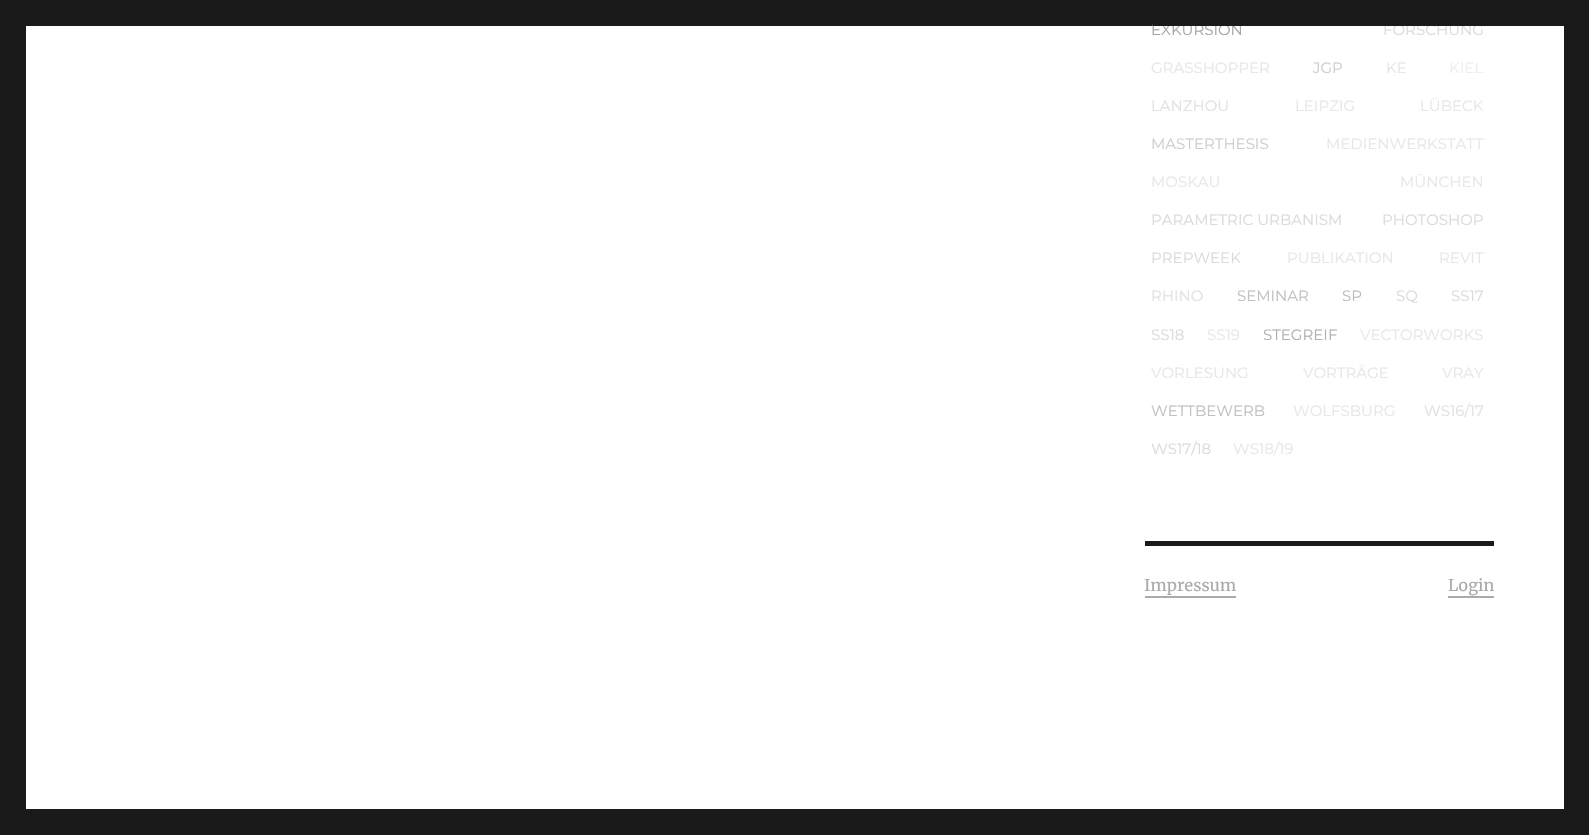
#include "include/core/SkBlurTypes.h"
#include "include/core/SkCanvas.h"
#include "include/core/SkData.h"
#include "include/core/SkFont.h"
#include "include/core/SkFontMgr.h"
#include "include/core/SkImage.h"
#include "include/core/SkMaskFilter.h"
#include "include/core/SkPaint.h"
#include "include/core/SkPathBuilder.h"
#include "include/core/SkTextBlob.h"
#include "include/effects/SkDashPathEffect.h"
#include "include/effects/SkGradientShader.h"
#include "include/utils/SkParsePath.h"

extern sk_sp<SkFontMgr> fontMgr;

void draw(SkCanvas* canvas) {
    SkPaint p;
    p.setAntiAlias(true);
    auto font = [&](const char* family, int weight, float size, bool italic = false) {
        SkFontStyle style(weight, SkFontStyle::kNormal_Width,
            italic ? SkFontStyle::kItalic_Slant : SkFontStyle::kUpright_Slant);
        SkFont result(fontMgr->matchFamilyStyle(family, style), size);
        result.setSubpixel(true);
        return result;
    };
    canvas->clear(0xFF1A1A1A);
    p.setColor(0xFFFFFFFF);
    canvas->drawRect(SkRect::MakeLTRB(26, 26, 1564, 809), p);
    auto font1 = font("Montserrat", 100, 15);
    p.setColor(0xFFA4A4A4);
    canvas->drawString("EXKURSION", 1151, 35, font1, p);
    p.setColor(0xFFDADADA);
    canvas->drawString("FORSCHUNG", 1383, 35, font1, p);
    p.setColor(0xFFE7E7E7);
    canvas->drawString("GRASSHOPPER", 1151, 73, font1, p);
    p.setColor(0xFFCDCDCD);
    canvas->drawString("JGP", 1313, 73, font1, p);
    p.setColor(0xFFE7E7E7);
    canvas->drawString("KE", 1386, 73, font1, p);
    p.setColor(0xFFEEEEEE);
    canvas->drawString("KIEL", 1449, 73, font1, p);
    p.setColor(0xFFE1E1E1);
    canvas->drawString("LANZHOU", 1151, 111, font1, p);
    p.setColor(0xFFE7E7E7);
    canvas->drawString("LEIPZIG", 1295, 111, font1, p);
    canvas->drawString("LÜBECK", 1420, 111, font1, p);
    p.setColor(0xFFCDCDCD);
    canvas->drawString("MASTERTHESIS", 1151, 149, font1, p);
    p.setColor(0xFFE7E7E7);
    {
        const struct { const char* s; float x, y; } items[] = {
            {"MEDIENWERKSTATT", 1326, 149},
            {"MOSKAU", 1151, 187},
            {"MÜNCHEN", 1400, 187},
        };
        for (auto [s, x, y] : items) {
            canvas->drawString(s, x, y, font1, p);
        }
    }
    p.setColor(0xFFDADADA);
    {
        const struct { const char* s; float x, y; } items[] = {
            {"PARAMETRIC URBANISM", 1151, 225},
            {"PHOTOSHOP", 1382, 225},
            {"PREPWEEK", 1151, 263},
        };
        for (auto [s, x, y] : items) {
            canvas->drawString(s, x, y, font1, p);
        }
    }
    p.setColor(0xFFE7E7E7);
    canvas->drawString("PUBLIKATION", 1287, 263, font1, p);
    canvas->drawString("REVIT", 1439, 263, font1, p);
    p.setColor(0xFFE1E1E1);
    canvas->drawString("RHINO", 1151, 301, font1, p);
    p.setColor(0xFFC0C0C0);
    canvas->drawString("SEMINAR", 1237, 301, font1, p);
    p.setColor(0xFFBABABA);
    canvas->drawString("SP", 1342, 301, font1, p);
    p.setColor(0xFFDADADA);
    {
        const struct { const char* s; float x, y; } items[] = {
            {"SQ", 1396, 301},
            {"SS17", 1451, 301},
            {"SS18", 1151, 340},
        };
        for (auto [s, x, y] : items) {
            canvas->drawString(s, x, y, font1, p);
        }
    }
    p.setColor(0xFFE7E7E7);
    canvas->drawString("SS19", 1207, 340, font1, p);
    p.setColor(0xFFB0B0B0);
    canvas->drawString("STEGREIF", 1263, 340, font1, p);
    p.setColor(0xFFE7E7E7);
    {
        const struct { const char* s; float x, y; } items[] = {
            {"VECTORWORKS", 1360, 340},
            {"VORLESUNG", 1151, 378},
            {"VORTRÄGE", 1303, 378},
            {"VRAY", 1442, 378},
        };
        for (auto [s, x, y] : items) {
            canvas->drawString(s, x, y, font1, p);
        }
    }
    p.setColor(0xFFC0C0C0);
    canvas->drawString("WETTBEWERB", 1151, 416, font1, p);
    p.setColor(0xFFE7E7E7);
    canvas->drawString("WOLFSBURG", 1293, 416, font1, p);
    p.setColor(0xFFE1E1E1);
    canvas->drawString("WS16/17", 1424, 416, font1, p);
    p.setColor(0xFFDADADA);
    canvas->drawString("WS17/18", 1151, 454, font1, p);
    p.setColor(0xFFE7E7E7);
    canvas->drawString("WS18/19", 1233, 454, font1, p);
    p.setColor(0xFF1A1A1A);
    canvas->drawRect(SkRect::MakeLTRB(1145, 541, 1494, 546), p);
    auto font2 = font("Merriweather", 400, 16.25f);
    p.setColor(0xFFAAAAAA);
    canvas->drawString("Impressum", 1144, 591, font2, p);
    canvas->drawRect(SkRect::MakeLTRB(1145, 596, 1236, 598), p);
    canvas->drawString("Login", 1448, 591, font2, p);
    canvas->drawPath(SkPathBuilder().moveTo(1448, 596).lineTo(1448, 598).lineTo(1494, 598).lineTo(1494, 576).lineTo(1494, 596).close().detach(), p);
    p.setColor(0xFF1A1A1A);
    canvas->drawRect(SkRect::MakeLTRB(1153, 24, 1483, 26), p);
}
